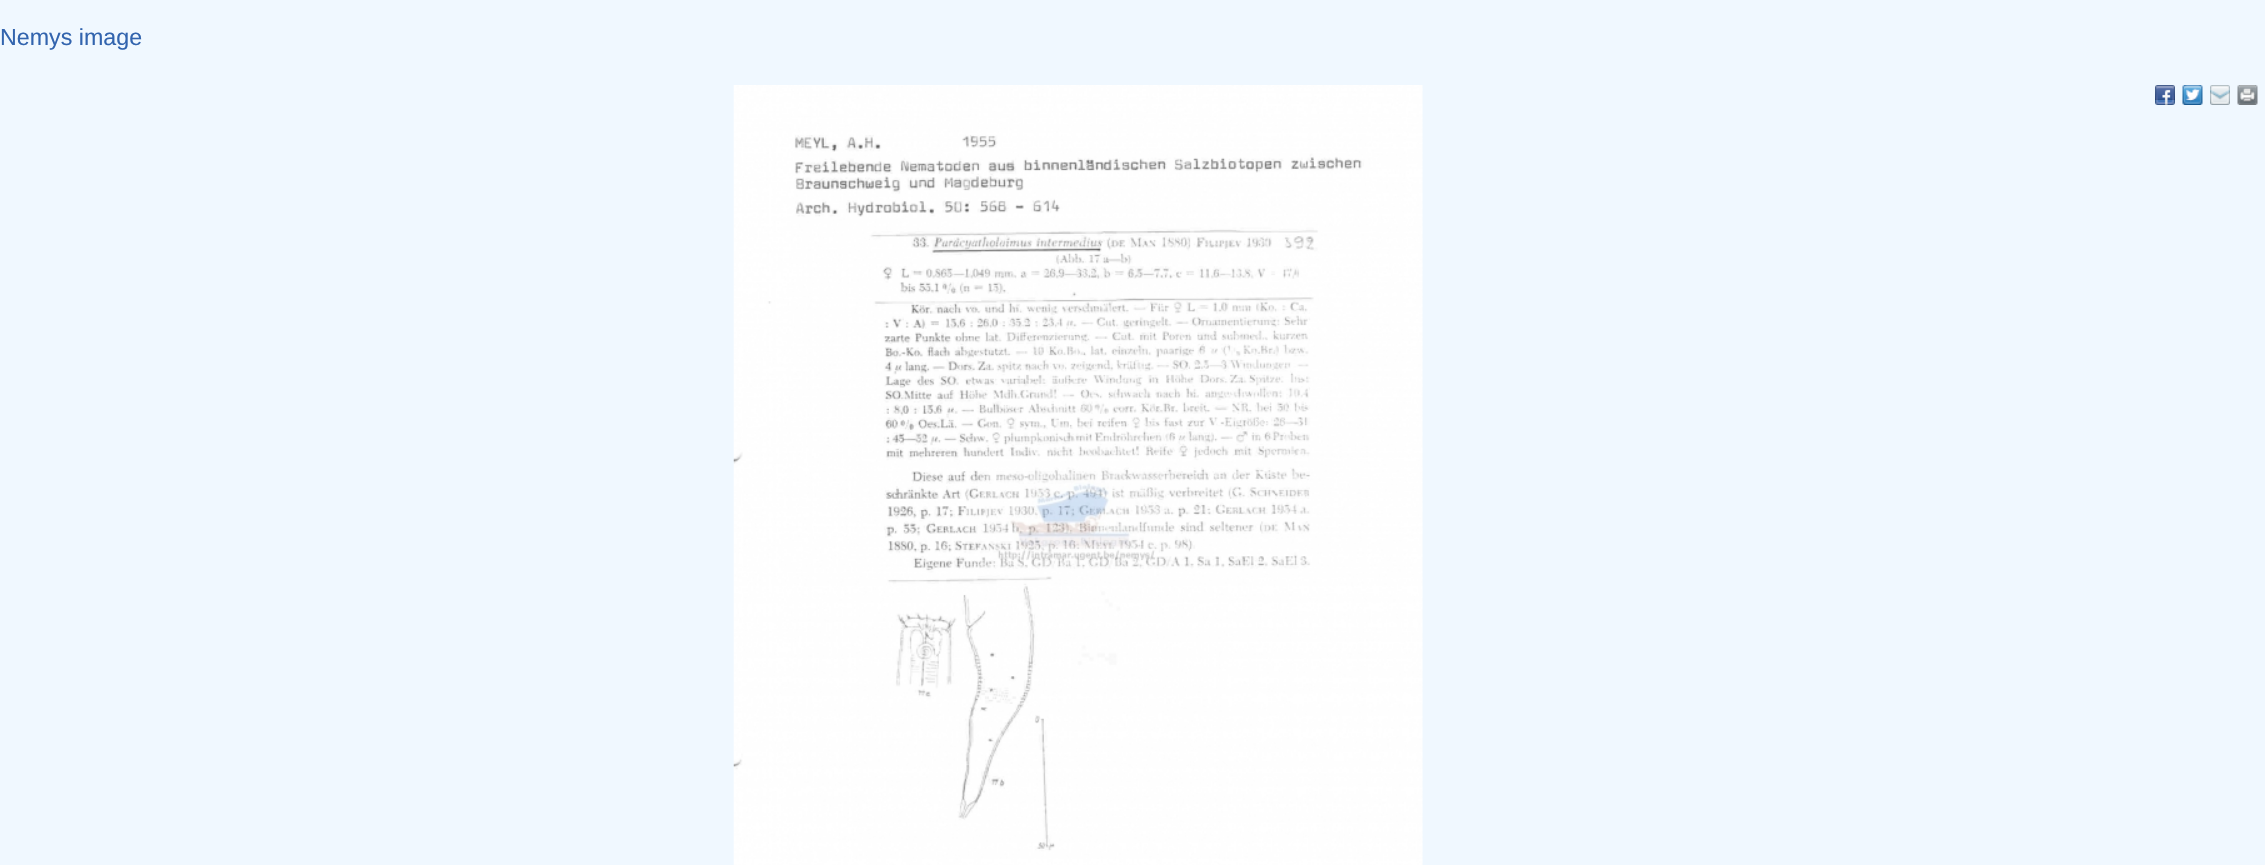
#include "include/core/SkBlurTypes.h"
#include "include/core/SkCanvas.h"
#include "include/core/SkData.h"
#include "include/core/SkFont.h"
#include "include/core/SkFontMgr.h"
#include "include/core/SkImage.h"
#include "include/core/SkMaskFilter.h"
#include "include/core/SkPaint.h"
#include "include/core/SkPathBuilder.h"
#include "include/core/SkTextBlob.h"
#include "include/effects/SkDashPathEffect.h"
#include "include/effects/SkGradientShader.h"
#include "include/utils/SkParsePath.h"

extern sk_sp<SkFontMgr> fontMgr;

void draw(SkCanvas* canvas) {
    SkPaint p;
    p.setAntiAlias(true);
    auto font = [&](const char* family, int weight, float size, bool italic = false) {
        SkFontStyle style(weight, SkFontStyle::kNormal_Width,
            italic ? SkFontStyle::kItalic_Slant : SkFontStyle::kUpright_Slant);
        SkFont result(fontMgr->matchFamilyStyle(family, style), size);
        result.setSubpixel(true);
        return result;
    };
    auto drawPhoto = [&](const char* path, float l, float t, float r, float b) {
        auto image = SkImages::DeferredFromEncodedData(SkData::MakeFromFileName(path));
        canvas->drawImageRect(image, SkRect::MakeLTRB(l, t, r, b), SkSamplingOptions());
    };
    canvas->clear(0xFFF0F8FF);
    auto font1 = font("Liberation Sans", 400, 23.25f);
    p.setColor(0xFF3264AE);
    canvas->drawString("Nemys image", 0, 45, font1, p);
    drawPhoto("media/1.png", 733, 85, 1423, 865);
    drawPhoto("media/2.png", 2155, 85, 2175, 105);
    drawPhoto("media/3.png", 2182, 85, 2203, 105);
    drawPhoto("media/4.png", 2210, 85, 2230, 105);
    drawPhoto("media/5.png", 2237, 85, 2258, 105);
}
